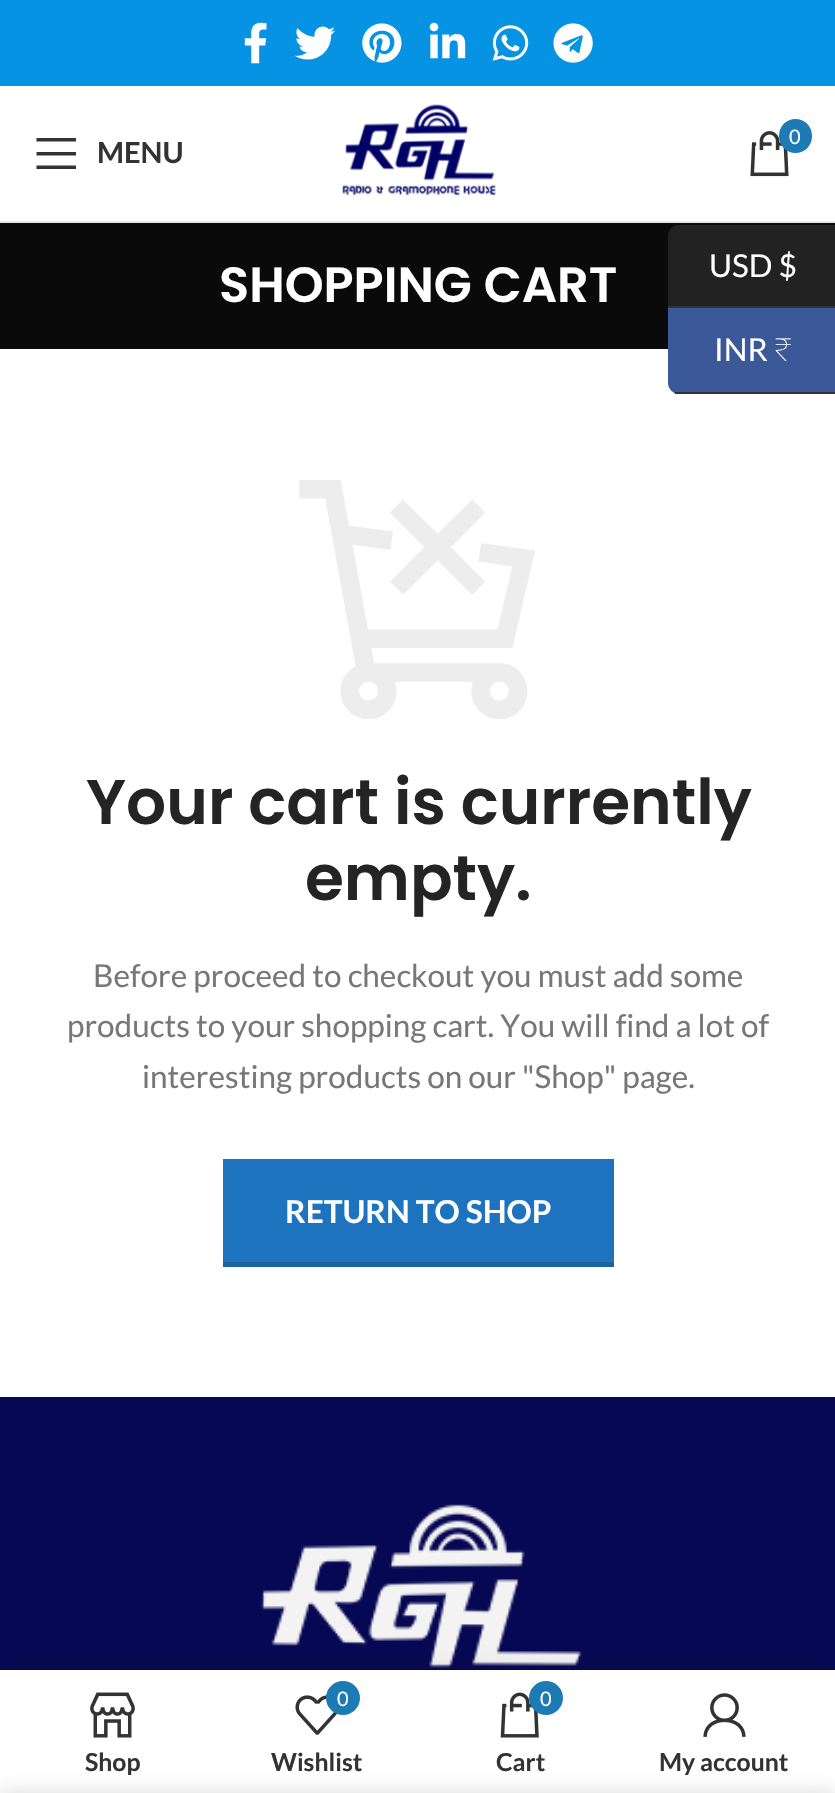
#include "include/core/SkBlurTypes.h"
#include "include/core/SkCanvas.h"
#include "include/core/SkData.h"
#include "include/core/SkFont.h"
#include "include/core/SkFontMgr.h"
#include "include/core/SkImage.h"
#include "include/core/SkMaskFilter.h"
#include "include/core/SkPaint.h"
#include "include/core/SkPathBuilder.h"
#include "include/core/SkTextBlob.h"
#include "include/effects/SkDashPathEffect.h"
#include "include/effects/SkGradientShader.h"
#include "include/utils/SkParsePath.h"

extern sk_sp<SkFontMgr> fontMgr;

void draw(SkCanvas* canvas) {
    SkPaint p;
    p.setAntiAlias(true);
    auto font = [&](const char* family, int weight, float size, bool italic = false) {
        SkFontStyle style(weight, SkFontStyle::kNormal_Width,
            italic ? SkFontStyle::kItalic_Slant : SkFontStyle::kUpright_Slant);
        SkFont result(fontMgr->matchFamilyStyle(family, style), size);
        result.setSubpixel(true);
        return result;
    };
    auto drawPhoto = [&](const char* path, float l, float t, float r, float b) {
        auto image = SkImages::DeferredFromEncodedData(SkData::MakeFromFileName(path));
        canvas->drawImageRect(image, SkRect::MakeLTRB(l, t, r, b), SkSamplingOptions());
    };
    canvas->clear(0xFFFFFFFF);
    p.setColor(0xFF0693E3);
    canvas->drawRect(SkRect::MakeLTRB(0, 0, 835, 86), p);
    drawPhoto("media/1.png", 244, 22, 267, 64);
    drawPhoto("media/2.png", 295, 26, 336, 60);
    drawPhoto("media/3.png", 362, 23, 402, 63);
    drawPhoto("media/4.png", 429, 22, 466, 59);
    drawPhoto("media/5.png", 492, 25, 529, 61);
    drawPhoto("media/6.png", 553, 23, 593, 63);
    p.setColor(0xFFE8E8E8);
    canvas->drawRect(SkRect::MakeLTRB(0, 221, 835, 223), p);
    drawPhoto("media/7.png", 342, 104, 496, 196);
    drawPhoto("media/8.png", 750, 131, 789, 177);
    p.setColor(0xFF1C7AB5);
    canvas->drawRoundRect(SkRect::MakeLTRB(779, 119, 812, 153), 16.5f, 16.5f, p);
    auto font1 = font("Lato", 400, 20);
    p.setColor(0xFFFFFFFF);
    canvas->drawString("0", 789, 144, font1, p);
    p.setColor(0xFF333333);
    canvas->drawPath(SkPathBuilder().moveTo(36.5f, 141.5f).lineTo(76, 141.5f).lineTo(76, 138).lineTo(36.5f, 138).close().moveTo(36.5f, 155.5f).lineTo(76, 155.5f).lineTo(76, 152).lineTo(36.5f, 152).close().moveTo(36.5f, 169).lineTo(76, 169).lineTo(76, 165.5f).lineTo(36.5f, 165.5f).close().detach(), p);
    auto font2 = font("Lato", 700, 29);
    canvas->drawString("MENU", 97, 163, font2, p);
    p.setColor(0xFF0A0A0A);
    canvas->drawRect(SkRect::MakeLTRB(0, 223, 835, 349), p);
    auto font3 = font("Poppins", 600, 49.5f);
    p.setColor(0xFFFFFFFF);
    canvas->drawString("SHOPPING CART", 219, 302, font3, p);
    drawPhoto("media/9.png", 299, 480, 535, 719);
    auto font4 = font("Poppins", 600, 63);
    p.setColor(0xFF242424);
    canvas->drawString("Your cart is currently", 86, 824, font4, p);
    canvas->drawString("empty.", 305, 900, font4, p);
    auto font5 = font("Lato", 400, 31.5f);
    p.setColor(0xFF777777);
    {
        const struct { const char* s; float x, y; } items[] = {
            {"Before proceed to checkout you must add some", 93, 987},
            {"products to your shopping cart. You will find a lot of", 67, 1037},
            {"interesting products on our \"Shop\" page.", 142, 1088},
        };
        for (auto [s, x, y] : items) {
            canvas->drawString(s, x, y, font5, p);
        }
    }
    p.setColor(0xFF1E73BE);
    canvas->drawRect(SkRect::MakeLTRB(223, 1159, 614, 1262), p);
    p.setColor(0xFF1A62A2);
    canvas->drawRect(SkRect::MakeLTRB(223, 1262, 614, 1267), p);
    auto font6 = font("Lato", 700, 31.5f);
    p.setColor(0xFFFFFFFF);
    canvas->drawString("RETURN TO SHOP", 285, 1223, font6, p);
    p.setColor(0xFF070853);
    canvas->drawRect(SkRect::MakeLTRB(0, 1397, 835, 1670), p);
    drawPhoto("media/10.png", 260, 1504, 582, 1668);
    p.setColor(0xFF222222);
    canvas->drawPath(SkPathBuilder().moveTo(679, 225).lineTo(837, 225).lineTo(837, 308).lineTo(668, 308).lineTo(668, 236).cubicTo(668, 230, 673, 225, 679, 225).close().detach(), p);
    p.setColor(0xFF333333);
    canvas->drawRect(SkRect::MakeLTRB(668, 306, 835, 308), p);
    p.setColor(0xFFFFFFFF);
    canvas->drawString("USD $", 709, 277, font5, p);
    p.setColor(0xFF3B5998);
    canvas->drawPath(SkPathBuilder().moveTo(668, 308).lineTo(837, 308).lineTo(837, 394).lineTo(679, 394).cubicTo(673, 394, 668, 389, 668, 383).close().detach(), p);
    p.setColor(0xFF333333);
    canvas->drawRect(SkRect::MakeLTRB(675, 392, 835, 394), p);
    p.setColor(0xFFFFFFFF);
    canvas->drawString("INR", 714, 361, font5, p);
    auto font7 = font("Noto Sans", 100, 31.5f);
    canvas->drawString("₹", 774, 361, font7, p);
    p.setColor(0x1F000000);
    p.setMaskFilter(SkMaskFilter::MakeBlur(kNormal_SkBlurStyle, 10));
    canvas->drawRect(SkRect::MakeLTRB(0, 1670, 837, 1793), p);
    p.setMaskFilter(nullptr);
    p.setColor(0xFFFFFFFF);
    canvas->drawRect(SkRect::MakeLTRB(0, 1670, 835, 1793), p);
    drawPhoto("media/11.png", 90, 1692, 135, 1738);
    canvas->save();
    canvas->clipRect(SkRect::MakeLTRB(34, 1746, 194, 1775));
    auto font8 = font("Lato", 700, 24.75f);
    p.setColor(0xFF333333);
    canvas->drawString("Shop", 85, 1771, font8, p);
    canvas->restore();
    drawPhoto("media/12.png", 295, 1695, 338, 1735);
    p.setColor(0xFF1C7AB5);
    canvas->drawCircle(343, 1698, 17, p);
    p.setColor(0xFFFFFFFF);
    canvas->drawString("0", 337, 1706, font1, p);
    p.setColor(0xFF333333);
    canvas->drawString("Wishlist", 271, 1771, font8, p);
    drawPhoto("media/13.png", 500, 1692, 539, 1738);
    p.setColor(0xFF1C7AB5);
    canvas->drawCircle(546, 1698, 17, p);
    p.setColor(0xFFFFFFFF);
    canvas->drawString("0", 540, 1706, font1, p);
    p.setColor(0xFF333333);
    canvas->drawString("Cart", 496, 1771, font8, p);
    drawPhoto("media/14.png", 703, 1693, 746, 1737);
    canvas->save();
    canvas->clipRect(SkRect::MakeLTRB(646, 1746, 803, 1775));
    canvas->drawString("My account", 659, 1771, font8, p);
    canvas->restore();
    p.setColor(0x24000000);
    p.setMaskFilter(SkMaskFilter::MakeBlur(kNormal_SkBlurStyle, 10));
    canvas->drawRect(SkRect::MakeLTRB(0, 1793, 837, 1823), p);
    p.setMaskFilter(nullptr);
}
